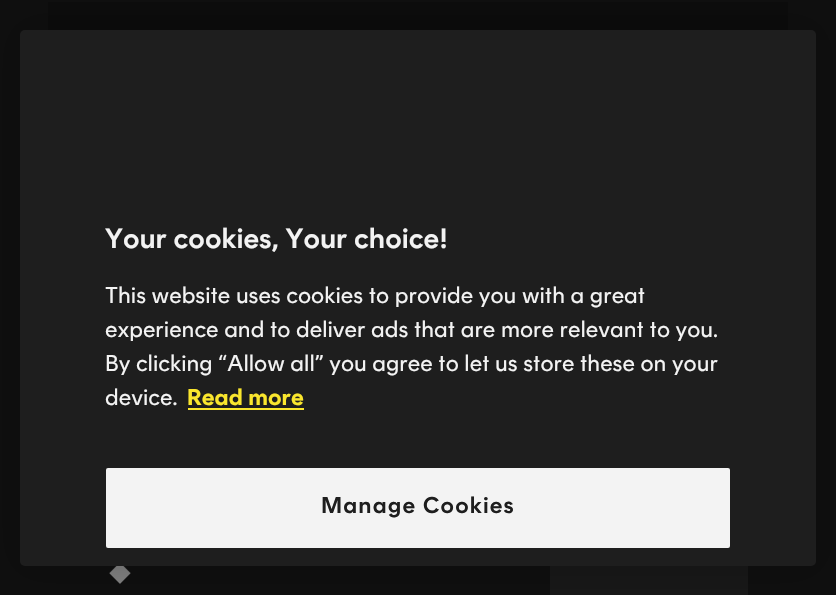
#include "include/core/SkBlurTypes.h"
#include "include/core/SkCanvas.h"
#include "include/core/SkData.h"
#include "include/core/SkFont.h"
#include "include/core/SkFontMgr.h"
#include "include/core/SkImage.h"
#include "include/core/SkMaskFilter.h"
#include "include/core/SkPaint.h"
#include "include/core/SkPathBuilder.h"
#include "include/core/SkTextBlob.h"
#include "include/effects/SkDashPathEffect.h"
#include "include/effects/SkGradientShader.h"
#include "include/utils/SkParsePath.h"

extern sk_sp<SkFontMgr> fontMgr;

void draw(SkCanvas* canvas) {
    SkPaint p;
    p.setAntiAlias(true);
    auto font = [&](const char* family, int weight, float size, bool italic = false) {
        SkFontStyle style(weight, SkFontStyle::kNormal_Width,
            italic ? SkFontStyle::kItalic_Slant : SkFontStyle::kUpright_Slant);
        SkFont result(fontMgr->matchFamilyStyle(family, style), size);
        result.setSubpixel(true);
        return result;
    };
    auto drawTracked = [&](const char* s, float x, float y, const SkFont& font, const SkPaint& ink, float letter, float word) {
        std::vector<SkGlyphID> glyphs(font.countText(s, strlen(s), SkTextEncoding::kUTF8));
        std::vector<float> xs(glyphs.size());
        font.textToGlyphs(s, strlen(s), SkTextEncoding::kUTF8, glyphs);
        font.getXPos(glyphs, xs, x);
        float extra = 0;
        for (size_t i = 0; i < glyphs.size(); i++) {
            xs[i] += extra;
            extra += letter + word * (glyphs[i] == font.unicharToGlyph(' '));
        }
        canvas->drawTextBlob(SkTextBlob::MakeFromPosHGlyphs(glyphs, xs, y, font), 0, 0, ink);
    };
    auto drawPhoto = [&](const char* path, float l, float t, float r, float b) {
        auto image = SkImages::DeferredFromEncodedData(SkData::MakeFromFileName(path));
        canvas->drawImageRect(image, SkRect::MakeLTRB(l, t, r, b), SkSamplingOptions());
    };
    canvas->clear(0xFF0F0F0F);
    p.setColor(0xFF0C0C0C);
    canvas->drawRect(SkRect::MakeLTRB(48, 2, 788, 30), p);
    drawPhoto("media/1.png", 109, 566, 131, 584);
    p.setColor(0xFF181818);
    canvas->drawRect(SkRect::MakeLTRB(550, 566, 748, 595), p);
    p.setColor(0x33000000);
    p.setMaskFilter(SkMaskFilter::MakeBlur(kNormal_SkBlurStyle, 18));
    canvas->drawRoundRect(SkRect::MakeLTRB(20, 30, 816, 566), 5, 5, p);
    p.setMaskFilter(nullptr);
    p.setColor(0xFF1E1E1E);
    canvas->drawRoundRect(SkRect::MakeLTRB(20, 30, 816, 566), 5, 5, p);
    auto font1 = font("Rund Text", 600, 28);
    p.setColor(0xFFF3F3F3);
    canvas->drawString("Your cookies, Your choice!", 105, 248, font1, p);
    auto font2 = font("Rund Text", 400, 22.75f);
    {
        const struct { const char* s; float x, y; } items[] = {
            {"This website uses cookies to provide you with a great", 105, 303},
            {"experience and to deliver ads that are more relevant to you.", 105, 337},
            {"By clicking “Allow all” you agree to let us store these on your", 105, 371},
            {"device.", 105, 405},
        };
        for (auto [s, x, y] : items) {
            canvas->drawString(s, x, y, font2, p);
        }
    }
    auto font3 = font("Rund Text", 700, 22.75f);
    p.setColor(0xFFFAE62D);
    canvas->drawString("Read more", 187, 405, font3, p);
    canvas->drawRect(SkRect::MakeLTRB(188, 408, 304, 410), p);
    p.setColor(0xFFF3F3F3);
    canvas->drawRoundRect(SkRect::MakeLTRB(105, 467, 731, 549), 3, 3, p);
    p.setStyle(SkPaint::kStroke_Style);
    p.setStrokeWidth(2);
    p.setColor(0xFF1E1E1E);
    canvas->drawRoundRect(SkRect::MakeLTRB(105, 467, 731, 549), 3, 3, p);
    auto font4 = font("Rund Text", 600, 22.75f);
    p.setStyle(SkPaint::kFill_Style);
    drawTracked("Manage Cookies", 321, 513, font4, p, 1.1f, 0);
}
